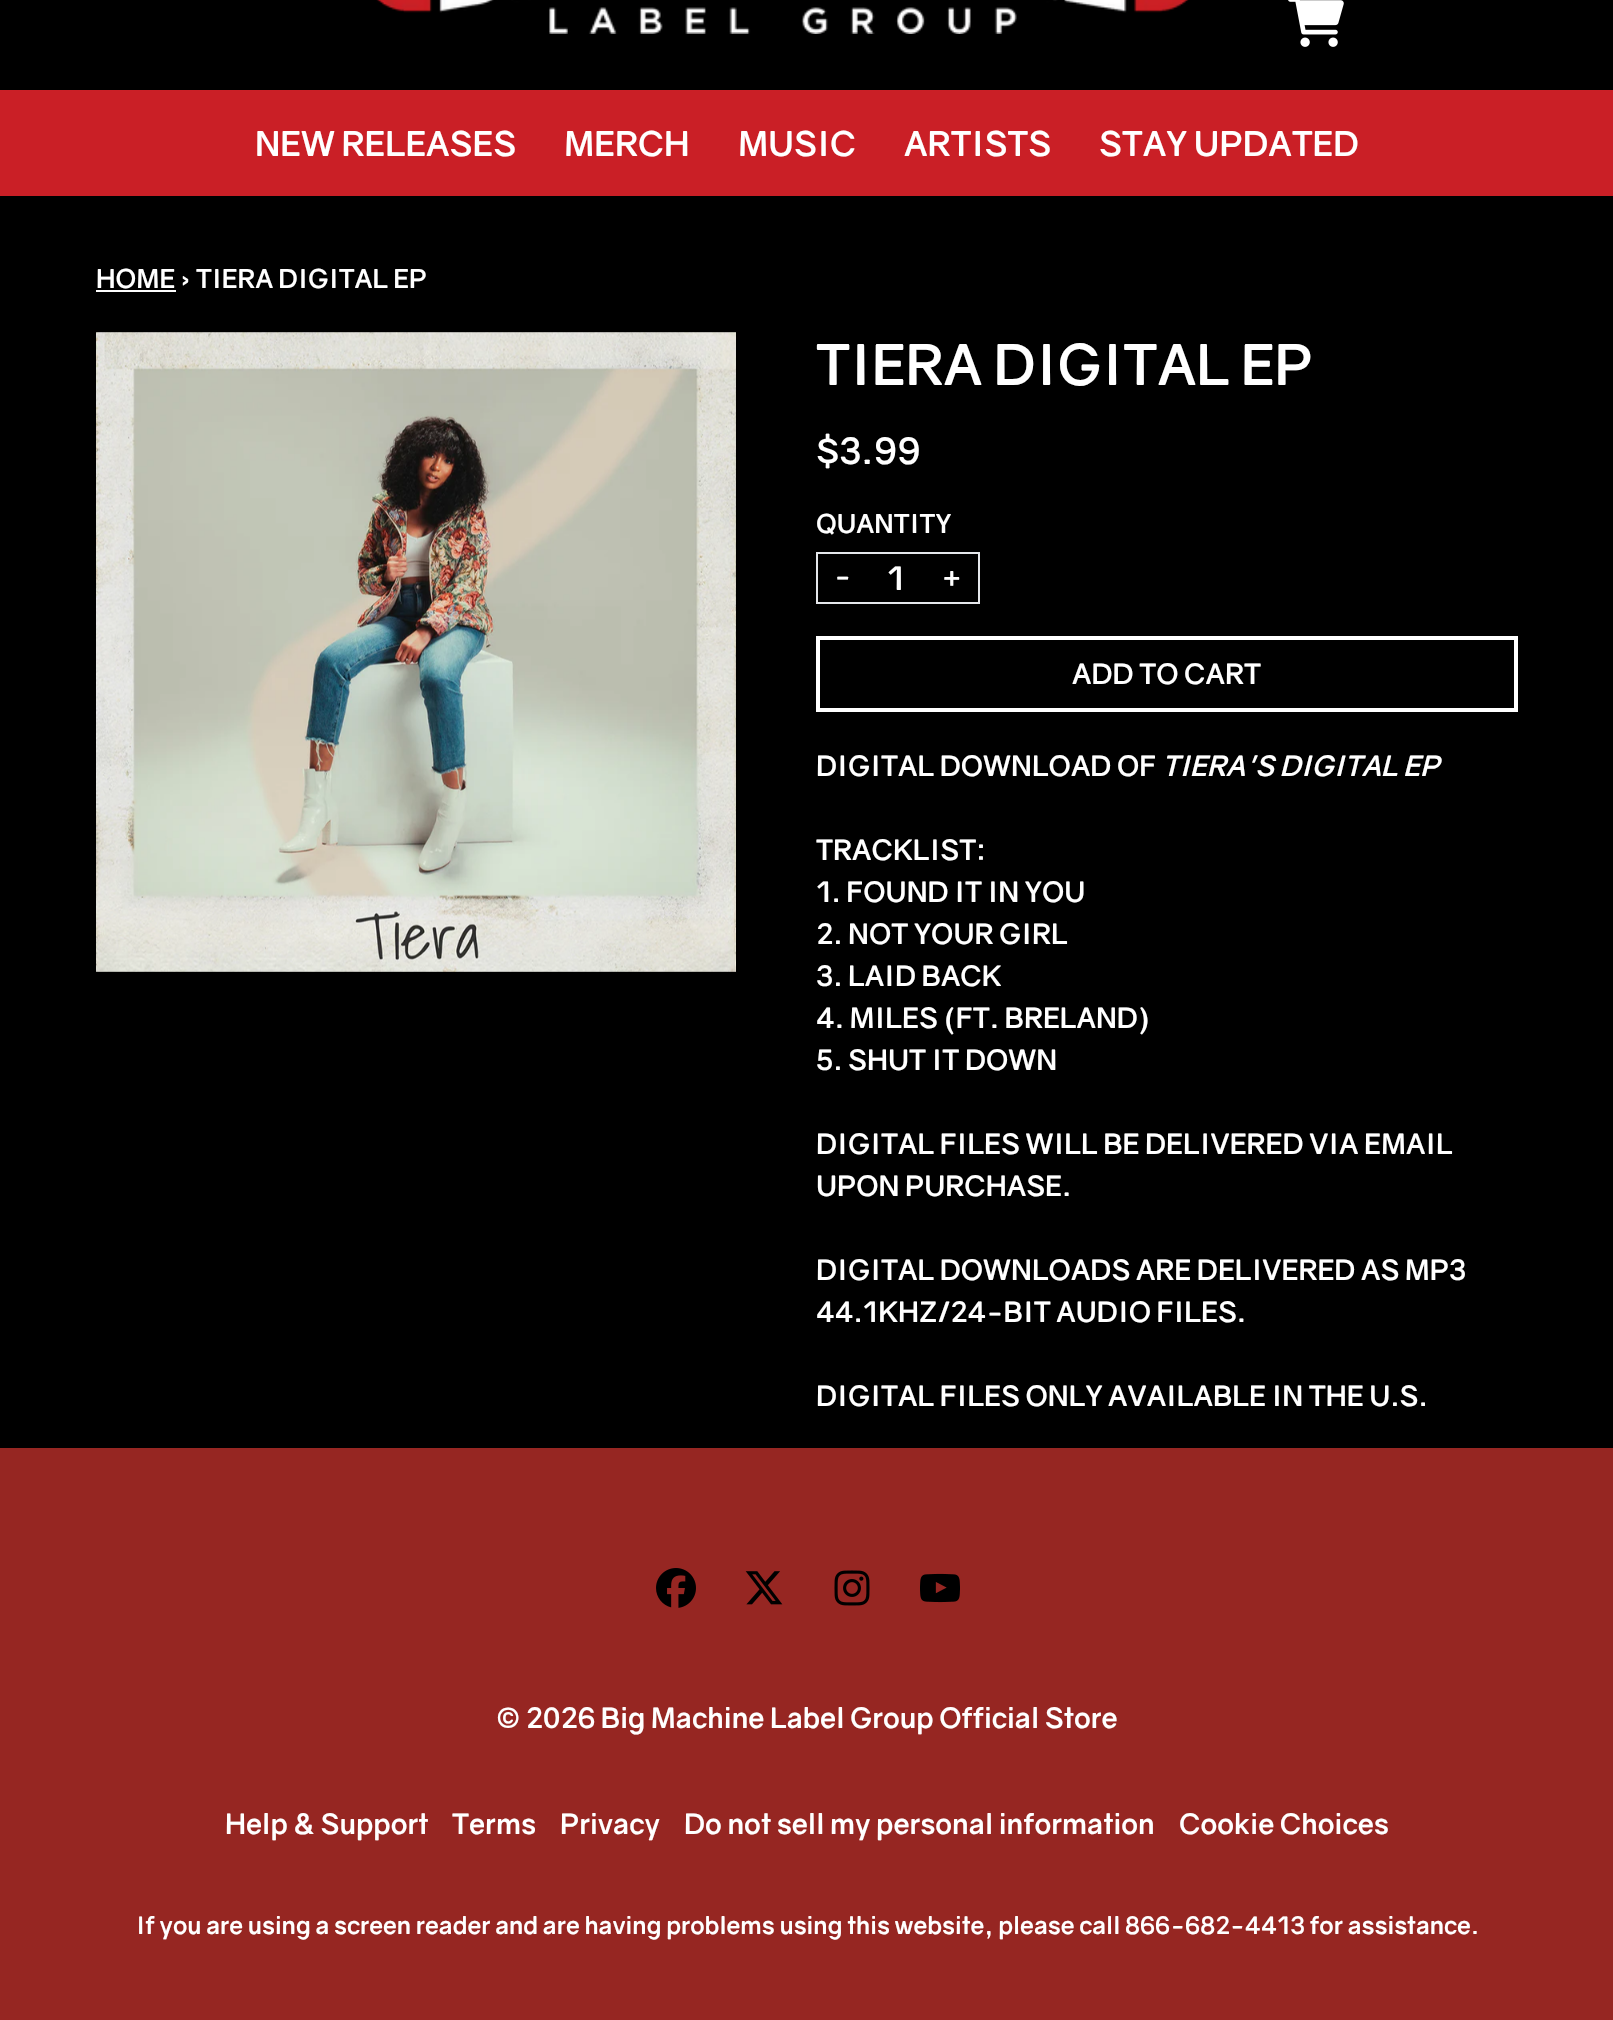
#include "include/core/SkBlurTypes.h"
#include "include/core/SkCanvas.h"
#include "include/core/SkData.h"
#include "include/core/SkFont.h"
#include "include/core/SkFontMgr.h"
#include "include/core/SkImage.h"
#include "include/core/SkMaskFilter.h"
#include "include/core/SkPaint.h"
#include "include/core/SkPathBuilder.h"
#include "include/core/SkTextBlob.h"
#include "include/effects/SkDashPathEffect.h"
#include "include/effects/SkGradientShader.h"
#include "include/utils/SkParsePath.h"

extern sk_sp<SkFontMgr> fontMgr;

void draw(SkCanvas* canvas) {
    SkPaint p;
    p.setAntiAlias(true);
    auto font = [&](const char* family, int weight, float size, bool italic = false) {
        SkFontStyle style(weight, SkFontStyle::kNormal_Width,
            italic ? SkFontStyle::kItalic_Slant : SkFontStyle::kUpright_Slant);
        SkFont result(fontMgr->matchFamilyStyle(family, style), size);
        result.setSubpixel(true);
        return result;
    };
    auto drawPhoto = [&](const char* path, float l, float t, float r, float b) {
        auto image = SkImages::DeferredFromEncodedData(SkData::MakeFromFileName(path));
        canvas->drawImageRect(image, SkRect::MakeLTRB(l, t, r, b), SkSamplingOptions());
    };
    canvas->clear(0xFF000000);
    drawPhoto("media/1.png", 376, 0, 1189, 34);
    drawPhoto("media/2.png", 1288, 0, 1344, 47);
    p.setColor(0xFFCA1F26);
    canvas->drawRect(SkRect::MakeLTRB(0, 90, 1613, 196), p);
    auto font1 = font("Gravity", 700, 34);
    p.setColor(0xFFFFFFFF);
    {
        const struct { const char* s; float x, y; } items[] = {
            {"NEW RELEASES", 255, 156},
            {"MERCH", 564, 156},
            {"MUSIC", 738, 156},
            {"ARTISTS", 904, 156},
            {"STAY UPDATED", 1099, 156},
        };
        for (auto [s, x, y] : items) {
            canvas->drawString(s, x, y, font1, p);
        }
    }
    auto font2 = font("Gravity", 700, 26);
    canvas->drawString("HOME › TIERA DIGITAL EP", 96, 288, font2, p);
    canvas->drawRect(SkRect::MakeLTRB(96, 290, 176, 292), p);
    drawPhoto("media/3.png", 96, 332, 736, 972);
    auto font3 = font("Gravity", 700, 56);
    canvas->drawString("TIERA DIGITAL EP", 816, 385, font3, p);
    auto font4 = font("Gravity", 700, 36);
    canvas->drawString("$3.99", 816, 464, font4, p);
    canvas->drawString("QUANTITY", 816, 533, font2, p);
    p.setStyle(SkPaint::kStroke_Style);
    p.setStrokeWidth(2);
    p.setColor(0xFFE5E7EB);
    canvas->drawRect(SkRect::MakeLTRB(817, 553, 979, 603), p);
    auto font5 = font("Gravity", 700, 28);
    p.setStyle(SkPaint::kFill_Style);
    p.setColor(0xFFFFFFFF);
    canvas->drawString("-", 834, 586, font5, p);
    auto font6 = font("Gravity", 700, 32);
    canvas->drawString("1", 887, 590, font6, p);
    canvas->drawString("+", 941, 586, font5, p);
    p.setStyle(SkPaint::kStroke_Style);
    p.setStrokeWidth(4);
    canvas->drawRect(SkRect::MakeLTRB(818, 638, 1516, 710), p);
    p.setStyle(SkPaint::kFill_Style);
    canvas->drawString("ADD TO CART", 1072, 684, font5, p);
    canvas->drawString("DIGITAL DOWNLOAD OF", 816, 776, font5, p);
    auto font7 = font("Gravity", 700, 28, true);
    canvas->drawString("TIERA'S DIGITAL EP", 1162, 776, font7, p);
    {
        const struct { const char* s; float x, y; } items[] = {
            {"TRACKLIST:", 816, 860},
            {"1. FOUND IT IN YOU", 816, 902},
            {"2. NOT YOUR GIRL", 816, 944},
            {"3. LAID BACK", 816, 986},
            {"4. MILES (FT. BRELAND)", 816, 1028},
            {"5. SHUT IT DOWN", 816, 1070},
            {"DIGITAL FILES WILL BE DELIVERED VIA EMAIL", 816, 1154},
            {"UPON PURCHASE.", 816, 1196},
            {"DIGITAL DOWNLOADS ARE DELIVERED AS MP3", 816, 1280},
            {"44.1KHZ/24-BIT AUDIO FILES.", 816, 1322},
            {"DIGITAL FILES ONLY AVAILABLE IN THE U.S.", 816, 1406},
        };
        for (auto [s, x, y] : items) {
            canvas->drawString(s, x, y, font5, p);
        }
    }
    p.setColor(0xFF962622);
    canvas->drawRect(SkRect::MakeLTRB(0, 1448, 1613, 2020), p);
    drawPhoto("media/4.png", 656, 1568, 696, 1608);
    drawPhoto("media/5.png", 745, 1571, 783, 1605);
    drawPhoto("media/6.png", 834, 1570, 870, 1606);
    drawPhoto("media/7.png", 920, 1573, 960, 1603);
    p.setColor(0xFFFFFFFF);
    {
        const struct { const char* s; float x, y; } items[] = {
            {"© 2026 Big Machine Label Group Official Store", 496, 1728},
            {"Help & Support", 225, 1834},
            {"Terms", 452, 1834},
            {"Privacy", 560, 1834},
            {"Do not sell my personal information", 684, 1834},
            {"Cookie Choices", 1179, 1834},
        };
        for (auto [s, x, y] : items) {
            canvas->drawString(s, x, y, font5, p);
        }
    }
    auto font8 = font("Gravity", 700, 24);
    canvas->drawString("If you are using a screen reader and are having problems using this website, please call 866-682-4413 for assistance.", 136, 1934, font8, p);
}
